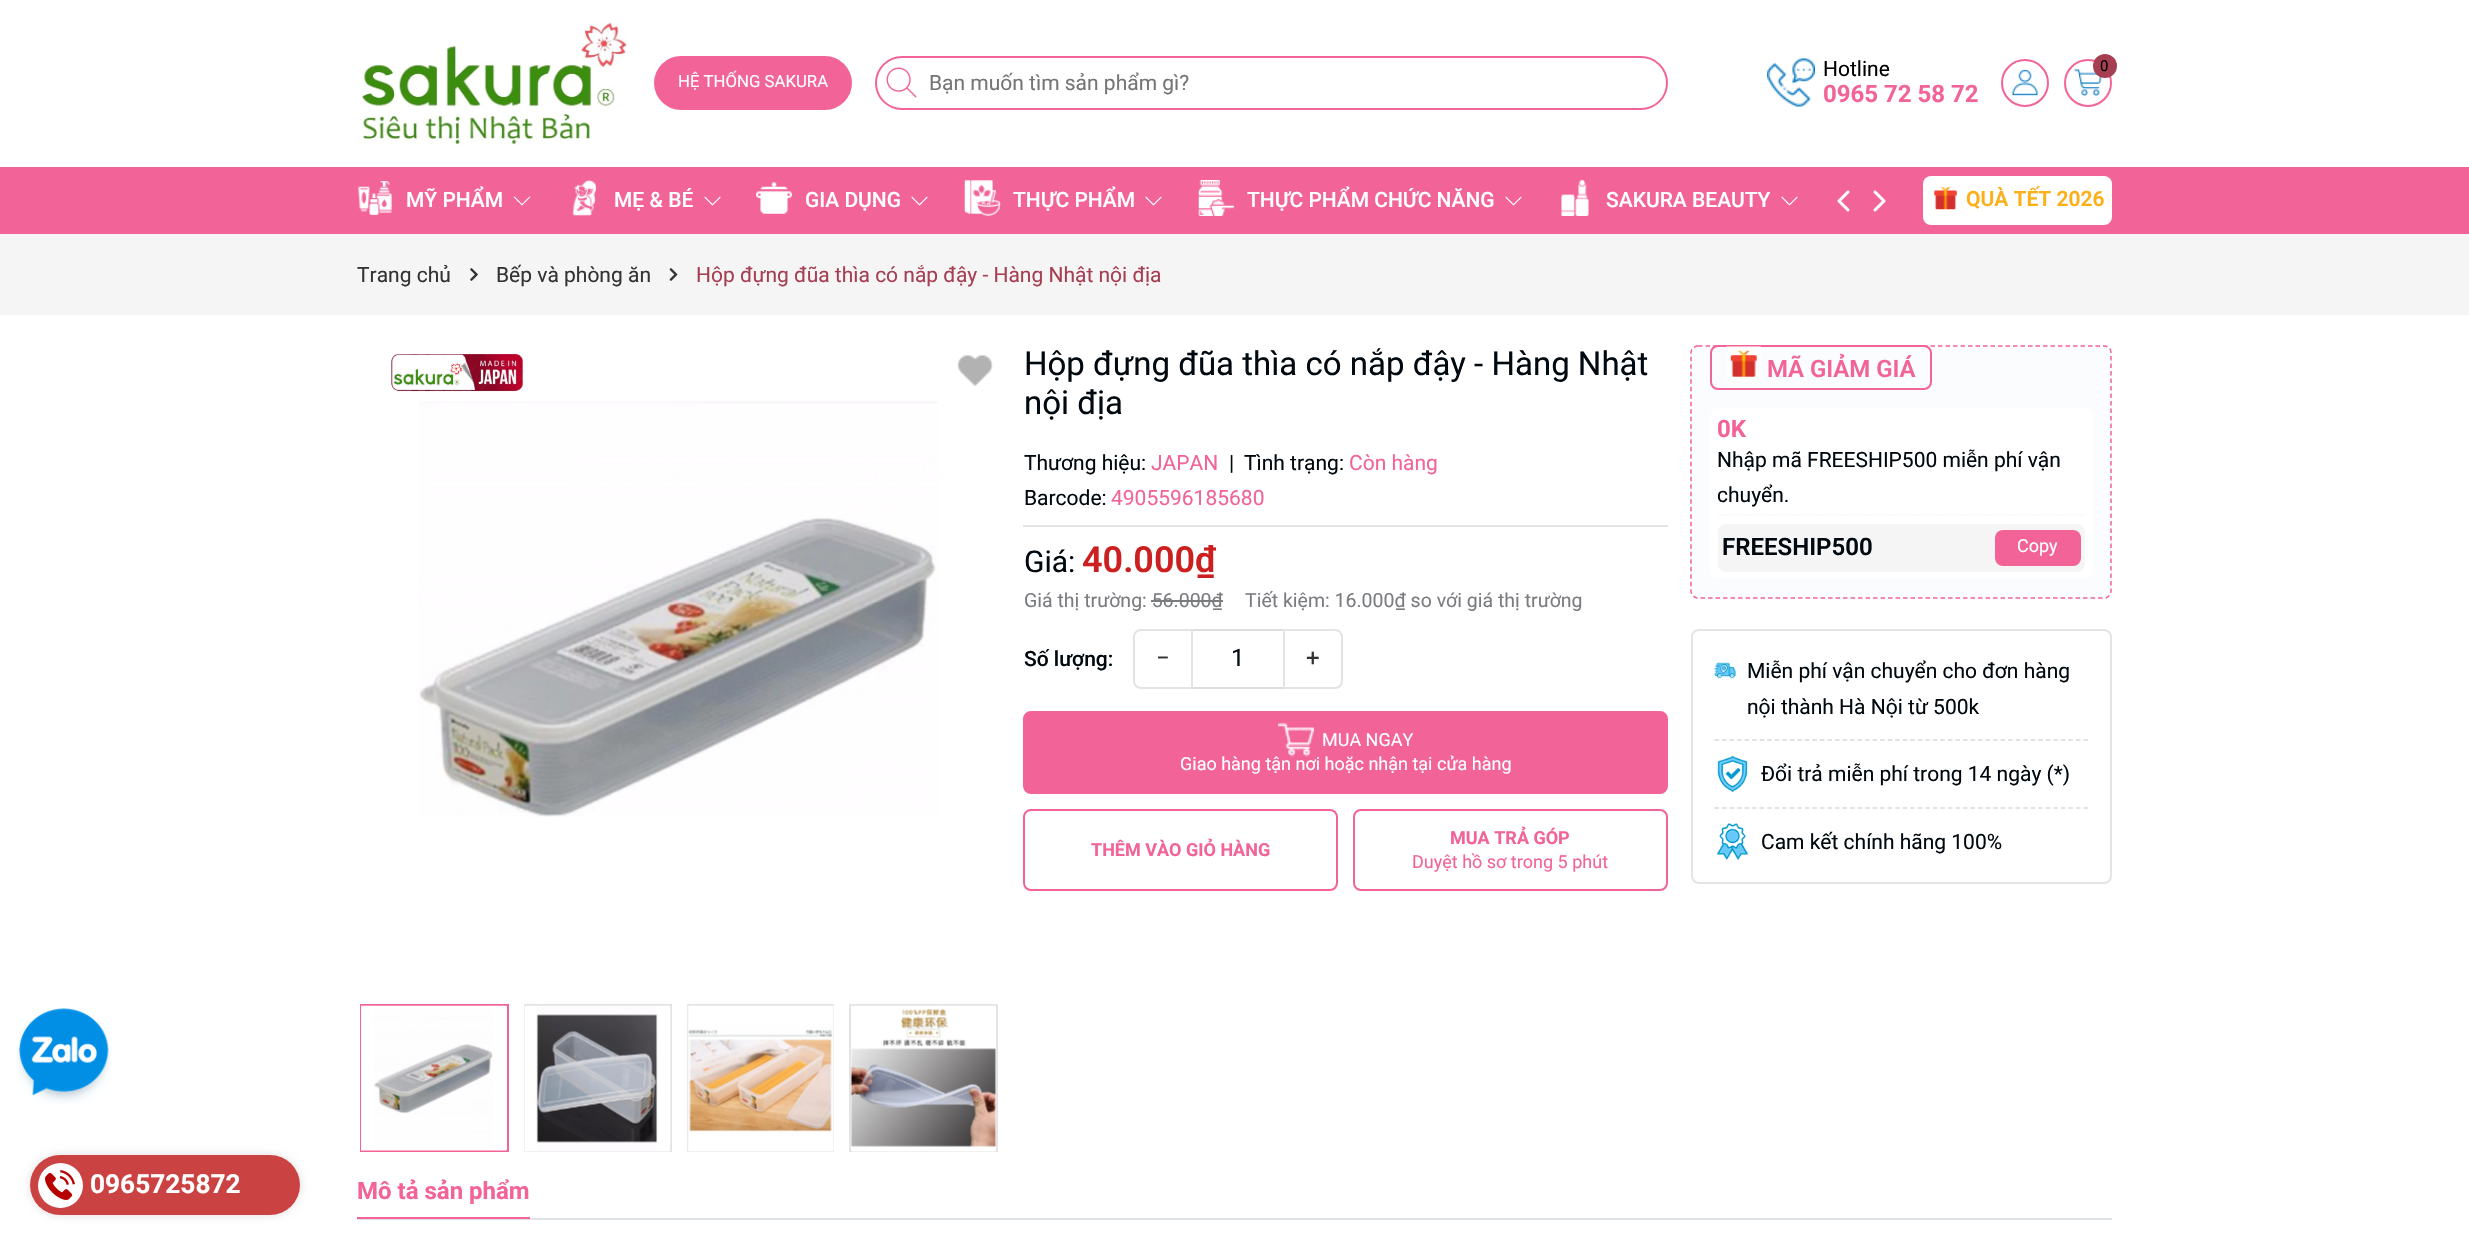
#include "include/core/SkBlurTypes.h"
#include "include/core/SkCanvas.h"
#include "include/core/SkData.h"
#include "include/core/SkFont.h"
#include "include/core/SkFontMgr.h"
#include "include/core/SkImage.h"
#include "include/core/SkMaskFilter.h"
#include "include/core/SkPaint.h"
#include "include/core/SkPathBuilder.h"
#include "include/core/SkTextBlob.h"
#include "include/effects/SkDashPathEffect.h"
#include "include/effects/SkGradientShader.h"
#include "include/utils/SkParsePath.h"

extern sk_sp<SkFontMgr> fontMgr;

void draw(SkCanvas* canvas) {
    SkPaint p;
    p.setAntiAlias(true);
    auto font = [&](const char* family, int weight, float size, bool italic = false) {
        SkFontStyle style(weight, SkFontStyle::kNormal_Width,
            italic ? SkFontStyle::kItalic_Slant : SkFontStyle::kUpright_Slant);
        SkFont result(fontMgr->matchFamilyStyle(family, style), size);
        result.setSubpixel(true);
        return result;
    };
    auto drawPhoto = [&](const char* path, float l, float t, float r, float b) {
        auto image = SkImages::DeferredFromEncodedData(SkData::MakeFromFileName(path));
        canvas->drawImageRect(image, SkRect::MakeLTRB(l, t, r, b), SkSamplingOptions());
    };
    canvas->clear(0xFFFFFFFF);
    drawPhoto("media/1.png", 362, 22, 627, 145);
    p.setColor(0xFFF26398);
    canvas->drawRoundRect(SkRect::MakeLTRB(654, 56, 852, 110), 27, 27, p);
    auto font1 = font("Roboto", 400, 16.75f);
    p.setColor(0xFFFFFFFF);
    canvas->drawString("HỆ THỐNG SAKURA", 678, 87, font1, p);
    p.setStyle(SkPaint::kStroke_Style);
    p.setStrokeWidth(2);
    p.setColor(0xFFF26398);
    canvas->drawRoundRect(SkRect::MakeLTRB(876, 57, 1667, 109), 26, 26, p);
    drawPhoto("media/2.png", 886, 67, 917, 98);
    auto font2 = font("Roboto", 400, 21);
    p.setStyle(SkPaint::kFill_Style);
    p.setColor(0xFF757575);
    canvas->drawString("Bạn muốn tìm sản phẩm gì?", 929, 90, font2, p);
    drawPhoto("media/3.png", 1767, 58, 1815, 107);
    p.setColor(0xFF000000);
    canvas->drawString("Hotline", 1823, 76, font2, p);
    auto font3 = font("Roboto", 700, 24);
    p.setColor(0xFFF26398);
    canvas->drawString("0965 72 58 72", 1823, 102, font3, p);
    p.setStyle(SkPaint::kStroke_Style);
    canvas->drawCircle(2025, 83, 23, p);
    drawPhoto("media/4.png", 2011, 69, 2039, 96);
    canvas->drawCircle(2088, 83, 23, p);
    drawPhoto("media/5.png", 2074, 69, 2102, 96);
    p.setStyle(SkPaint::kFill_Style);
    p.setColor(0xFFA63F52);
    canvas->drawCircle(2105, 66, 12, p);
    auto font4 = font("Roboto", 400, 15);
    p.setColor(0xFF000000);
    canvas->drawString("0", 2100, 71, font4, p);
    p.setColor(0xFFF26398);
    canvas->drawRect(SkRect::MakeLTRB(0, 167, 2469, 234), p);
    drawPhoto("media/6.png", 358, 181, 392, 215);
    auto font5 = font("Roboto", 500, 21);
    p.setColor(0xFFFFFFFF);
    canvas->drawString("MỸ PHẨM", 406, 207, font5, p);
    drawPhoto("media/7.png", 513, 196, 531, 206);
    drawPhoto("media/8.png", 572, 180, 596, 216);
    canvas->drawString("MẸ & BÉ", 614, 207, font5, p);
    drawPhoto("media/9.png", 704, 196, 721, 206);
    drawPhoto("media/10.png", 756, 182, 792, 214);
    canvas->drawString("GIA DỤNG", 805, 207, font5, p);
    drawPhoto("media/9.png", 911, 196, 928, 206);
    drawPhoto("media/11.png", 964, 180, 1001, 216);
    canvas->drawString("THỰC PHẨM", 1013, 207, font5, p);
    drawPhoto("media/9.png", 1145, 196, 1162, 206);
    drawPhoto("media/12.png", 1198, 180, 1235, 216);
    canvas->drawString("THỰC PHẨM CHỨC NĂNG", 1247, 207, font5, p);
    drawPhoto("media/9.png", 1505, 196, 1522, 206);
    drawPhoto("media/13.png", 1561, 180, 1589, 216);
    canvas->drawString("SAKURA BEAUTY", 1606, 207, font5, p);
    drawPhoto("media/9.png", 1781, 196, 1798, 206);
    drawPhoto("media/14.png", 1837, 190, 1850, 212);
    drawPhoto("media/15.png", 1873, 190, 1886, 212);
    canvas->drawRoundRect(SkRect::MakeLTRB(1923, 176, 2112, 225), 8, 8, p);
    drawPhoto("media/16.png", 1934, 186, 1957, 210);
    auto font6 = font("Roboto", 600, 21);
    p.setColor(0xFFFCAF17);
    canvas->drawString("QUÀ TẾT 2026", 1966, 206, font6, p);
    drawPhoto("media/17.png", 16, 1008, 111, 1104);
    p.setColor(0xFFF5F5F5);
    canvas->drawRect(SkRect::MakeLTRB(0, 234, 2469, 315), p);
    p.setColor(0xFF333333);
    canvas->drawString("Trang chủ", 357, 282, font2, p);
    drawPhoto("media/18.png", 470, 268, 478, 281);
    canvas->drawString("Bếp và phòng ăn", 496, 282, font2, p);
    drawPhoto("media/19.png", 669, 268, 678, 281);
    p.setColor(0xFFA63F52);
    canvas->drawString("Hộp đựng đũa thìa có nắp đậy - Hàng Nhật nội địa", 696, 282, font2, p);
    drawPhoto("media/20.png", 391, 353, 523, 392);
    drawPhoto("media/21.png", 957, 355, 993, 386);
    drawPhoto("media/22.png", 419, 401, 938, 817);
    p.setStyle(SkPaint::kStroke_Style);
    p.setColor(0xFFF26398);
    canvas->drawRect(SkRect::MakeLTRB(361, 1005, 508, 1151), p);
    drawPhoto("media/23.png", 361, 1005, 507, 1151);
    p.setColor(0xFFE4E4E4);
    canvas->drawRect(SkRect::MakeLTRB(525, 1005, 671, 1151), p);
    drawPhoto("media/24.png", 524, 1005, 671, 1152);
    canvas->drawRect(SkRect::MakeLTRB(688, 1005, 833, 1151), p);
    drawPhoto("media/25.png", 687, 1005, 834, 1152);
    canvas->drawRect(SkRect::MakeLTRB(850, 1005, 997, 1151), p);
    drawPhoto("media/26.png", 850, 1005, 996, 1152);
    auto font7 = font("Roboto", 400, 33);
    p.setStyle(SkPaint::kFill_Style);
    p.setColor(0xFF00090F);
    canvas->drawString("Hộp đựng đũa thìa có nắp đậy - Hàng Nhật", 1024, 375, font7, p);
    canvas->drawString("nội địa", 1024, 414, font7, p);
    p.setColor(0xFFE4E4E4);
    canvas->drawRect(SkRect::MakeLTRB(1023, 525, 1668, 527), p);
    p.setColor(0xFF00090F);
    canvas->drawString("Thương hiệu:", 1024, 470, font2, p);
    p.setColor(0xFFF26398);
    canvas->drawString("JAPAN", 1151, 470, font2, p);
    p.setColor(0xFF00090F);
    canvas->drawString("|", 1229, 470, font2, p);
    canvas->drawString("Tình trạng:", 1244, 470, font2, p);
    p.setColor(0xFFF26398);
    canvas->drawString("Còn hàng", 1349, 470, font2, p);
    p.setColor(0xFF00090F);
    canvas->drawString("Barcode:", 1024, 505, font2, p);
    p.setColor(0xFFF26398);
    canvas->drawString("4905596185680", 1111, 505, font2, p);
    auto font8 = font("Roboto", 400, 30);
    p.setColor(0xFF00090F);
    canvas->drawString("Giá:", 1024, 572, font8, p);
    auto font9 = font("Roboto", 600, 36);
    p.setColor(0xFFCC2020);
    canvas->drawString("40.000₫", 1082, 572, font9, p);
    auto font10 = font("Roboto", 400, 19.5f);
    p.setColor(0xFF7A7C80);
    canvas->drawString("Giá thị trường: 56.000₫", 1024, 607, font10, p);
    canvas->drawRect(SkRect::MakeLTRB(1151, 600, 1223, 602), p);
    canvas->drawString("Tiết kiệm: 16.000₫ so với giá thị trường", 1245, 607, font10, p);
    p.setColor(0xFF00090F);
    canvas->drawString("Số lượng:", 1024, 666, font5, p);
    p.setStyle(SkPaint::kStroke_Style);
    p.setColor(0xFFE4E4E4);
    canvas->drawPath(SkPathBuilder().moveTo(1141, 630).lineTo(1192, 630).lineTo(1192, 688).lineTo(1141, 688).cubicTo(1137, 688, 1134, 685, 1134, 681).lineTo(1134, 637).cubicTo(1134, 633, 1137, 630, 1141, 630).close().detach(), p);
    auto font11 = font("Roboto", 400, 24);
    p.setStyle(SkPaint::kFill_Style);
    p.setColor(0xFF333333);
    canvas->drawString("−", 1156, 666, font11, p);
    p.setColor(0xFFDDDDDD);
    canvas->drawRect(SkRect::MakeLTRB(1193, 629, 1283, 631), p);
    canvas->drawRect(SkRect::MakeLTRB(1193, 687, 1283, 689), p);
    p.setColor(0xFF00090F);
    canvas->drawString("1", 1231, 666, font11, p);
    p.setStyle(SkPaint::kStroke_Style);
    p.setColor(0xFFE4E4E4);
    canvas->drawPath(SkPathBuilder().moveTo(1284, 630).lineTo(1335, 630).cubicTo(1339, 630, 1342, 633, 1342, 637).lineTo(1342, 681).cubicTo(1342, 685, 1339, 688, 1335, 688).lineTo(1284, 688).close().detach(), p);
    p.setStyle(SkPaint::kFill_Style);
    p.setColor(0xFF333333);
    canvas->drawString("+", 1306, 666, font11, p);
    p.setColor(0xFFF26398);
    canvas->drawRoundRect(SkRect::MakeLTRB(1024, 712, 1667, 793), 7, 7, p);
    p.setStyle(SkPaint::kStroke_Style);
    canvas->drawRoundRect(SkRect::MakeLTRB(1024, 712, 1667, 793), 7, 7, p);
    auto font12 = font("Roboto", 400, 18);
    p.setStyle(SkPaint::kFill_Style);
    p.setColor(0xFFFFFFFF);
    canvas->drawString("Giao hàng tận nơi hoặc nhận tại cửa hàng", 1180, 770, font12, p);
    drawPhoto("media/27.png", 1278, 722, 1314, 757);
    canvas->drawString("MUA NGAY", 1322, 746, font12, p);
    p.setStyle(SkPaint::kStroke_Style);
    p.setColor(0xFFF26398);
    canvas->drawRoundRect(SkRect::MakeLTRB(1024, 810, 1337, 890), 7, 7, p);
    auto font13 = font("Roboto", 700, 18);
    p.setStyle(SkPaint::kFill_Style);
    canvas->drawString("THÊM VÀO GIỎ HÀNG", 1091, 856, font13, p);
    p.setStyle(SkPaint::kStroke_Style);
    canvas->drawRoundRect(SkRect::MakeLTRB(1354, 810, 1667, 890), 7, 7, p);
    p.setStyle(SkPaint::kFill_Style);
    canvas->drawString("MUA TRẢ GÓP", 1450, 844, font13, p);
    canvas->drawString("Duyệt hồ sơ trong 5 phút", 1412, 868, font12, p);
    p.setColor(0xFFFAFCFD);
    canvas->drawRoundRect(SkRect::MakeLTRB(1691, 345, 2112, 599), 8, 8, p);
    p.setStyle(SkPaint::kStroke_Style);
    p.setStrokeWidth(1.5f);
    p.setColor(0xFFF26398);
    p.setPathEffect(SkDashPathEffect::Make({{4.5f, 3}}, 0));
    canvas->drawPath(SkPathBuilder().moveTo(1698, 346).lineTo(2104.5f, 346).cubicTo(2108, 346, 2111, 349, 2111, 352.5f).lineTo(2111, 591).cubicTo(2111, 594.5f, 2108, 598, 2104.5f, 598).lineTo(1698, 598).cubicTo(1694.5f, 598, 1691, 594.5f, 1691, 591).lineTo(1691, 352.5f).cubicTo(1691, 349, 1694.5f, 346, 1698, 346).close().detach(), p);
    p.setPathEffect(nullptr);
    p.setStrokeWidth(2);
    canvas->drawRoundRect(SkRect::MakeLTRB(1711, 346, 1931, 389), 7, 7, p);
    drawPhoto("media/28.png", 1726, 346, 1761, 381);
    auto font14 = font("Roboto", 600, 24);
    p.setStyle(SkPaint::kFill_Style);
    canvas->drawString("MÃ GIẢM GIÁ", 1767, 377, font14, p);
    p.setColor(0xFFFFFFFF);
    canvas->drawRoundRect(SkRect::MakeLTRB(1710, 408, 2093, 579), 8, 8, p);
    p.setColor(0xFFF26398);
    canvas->drawString("0K", 1717, 437, font3, p);
    p.setStyle(SkPaint::kStroke_Style);
    p.setStrokeWidth(1.5f);
    p.setColor(0xFFF5F5F5);
    p.setPathEffect(SkDashPathEffect::Make({{1.5f, 1.5f}}, 0));
    canvas->drawPath(SkPathBuilder().moveTo(1717.5f, 515).lineTo(2085, 515).detach(), p);
    p.setPathEffect(nullptr);
    p.setStyle(SkPaint::kFill_Style);
    p.setColor(0xFF00090F);
    canvas->drawString("Nhập mã FREESHIP500 miễn phí vận", 1717, 467, font2, p);
    canvas->drawString("chuyển.", 1717, 502, font2, p);
    p.setColor(0xFFF5F5F5);
    canvas->drawRoundRect(SkRect::MakeLTRB(1718, 524, 2085, 572), 8, 8, p);
    p.setColor(0xFF00090F);
    canvas->drawString("FREESHIP500", 1722, 555, font14, p);
    p.setColor(0xFFF26398);
    canvas->drawRoundRect(SkRect::MakeLTRB(1995, 530, 2081, 566), 8, 8, p);
    p.setColor(0xFFFFFFFF);
    canvas->drawString("Copy", 2017, 552, font12, p);
    p.setStyle(SkPaint::kStroke_Style);
    p.setStrokeWidth(2);
    p.setColor(0xFFE4E4E4);
    canvas->drawRoundRect(SkRect::MakeLTRB(1692, 630, 2111, 883), 7, 7, p);
    drawPhoto("media/29.png", 1714, 662, 1736, 679);
    p.setStyle(SkPaint::kFill_Style);
    p.setColor(0xFF00090F);
    canvas->drawString("Miễn phí vận chuyển cho đơn hàng", 1747, 678, font2, p);
    canvas->drawString("nội thành Hà Nội từ 500k", 1747, 714, font2, p);
    p.setStyle(SkPaint::kStroke_Style);
    p.setStrokeWidth(1.5f);
    p.setColor(0xFFD9D9D9);
    p.setPathEffect(SkDashPathEffect::Make({{4.5f, 3.03f}}, 0));
    canvas->drawPath(SkPathBuilder().moveTo(1714.5f, 740).lineTo(2088, 740).detach(), p);
    p.setPathEffect(nullptr);
    drawPhoto("media/30.png", 1717, 756, 1748, 792);
    p.setStyle(SkPaint::kFill_Style);
    p.setColor(0xFF00090F);
    canvas->drawString("Đổi trả miễn phí trong 14 ngày (*)", 1761, 781, font2, p);
    p.setStyle(SkPaint::kStroke_Style);
    p.setColor(0xFFD9D9D9);
    p.setPathEffect(SkDashPathEffect::Make({{4.5f, 3.03f}}, 0));
    canvas->drawPath(SkPathBuilder().moveTo(1714.5f, 808).lineTo(2088, 808).detach(), p);
    p.setPathEffect(nullptr);
    drawPhoto("media/31.png", 1716, 823, 1749, 860);
    p.setStyle(SkPaint::kFill_Style);
    p.setColor(0xFF00090F);
    canvas->drawString("Cam kết chính hãng 100%", 1761, 849, font2, p);
    p.setColor(0xFFDEE2E6);
    canvas->drawRect(SkRect::MakeLTRB(357, 1218, 2112, 1220), p);
    p.setColor(0xFFF26398);
    canvas->drawRect(SkRect::MakeLTRB(357, 1217, 530, 1219), p);
    canvas->drawString("Mô tả sản phẩm", 357, 1199, font3, p);
    canvas->save();
    canvas->clipPath(SkPathBuilder(SkPathFillType::kEvenOdd).moveTo(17, 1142).lineTo(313, 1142).lineTo(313, 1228).lineTo(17, 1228).close().moveTo(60, 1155).lineTo(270, 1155).cubicTo(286.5f, 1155, 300, 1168.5f, 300, 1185).cubicTo(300, 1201.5f, 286.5f, 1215, 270, 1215).lineTo(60, 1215).cubicTo(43.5f, 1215, 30, 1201.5f, 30, 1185).cubicTo(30, 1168.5f, 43.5f, 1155, 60, 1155).close().detach(), true);
    p.setColor(0xFFDDDDDD);
    p.setMaskFilter(SkMaskFilter::MakeBlur(kNormal_SkBlurStyle, 4));
    canvas->drawRoundRect(SkRect::MakeLTRB(30, 1155, 300, 1215), 30, 30, p);
    p.setMaskFilter(nullptr);
    canvas->restore();
    p.setColor(0xBDB70100);
    canvas->drawRoundRect(SkRect::MakeLTRB(30, 1155, 300, 1215), 30, 30, p);
    p.setColor(0xFFFFFFFF);
    canvas->drawCircle(60.5f, 1185.5f, 22.5f, p);
    drawPhoto("media/32.png", 45, 1170, 75, 1200);
    auto font15 = font("Roboto", 700, 26.25f);
    canvas->drawString("0965725872", 90, 1193, font15, p);
}
